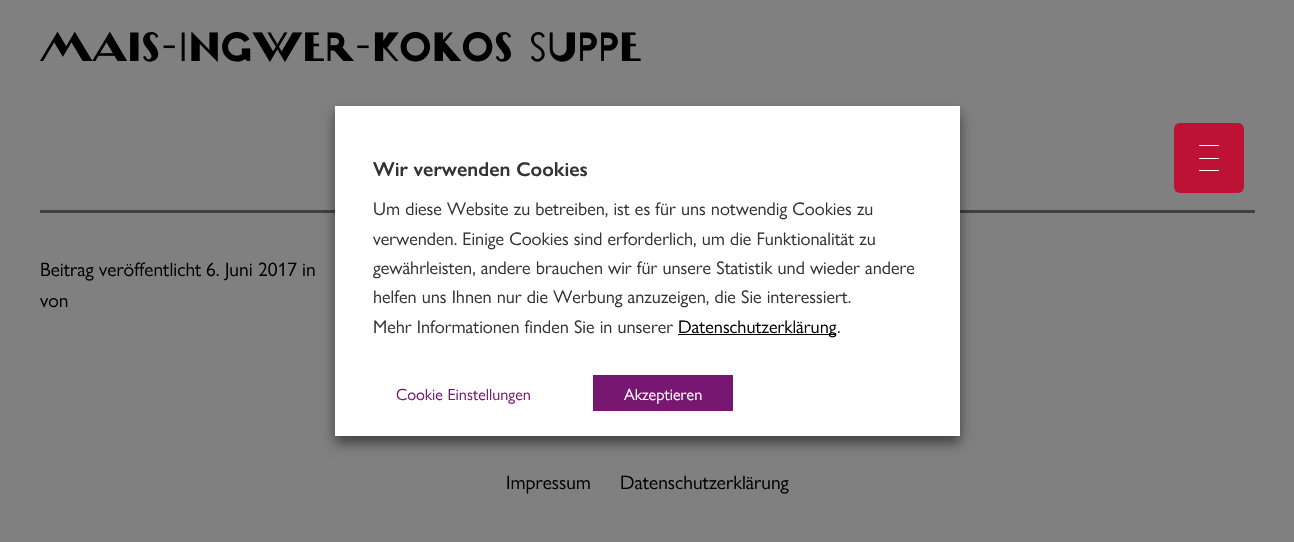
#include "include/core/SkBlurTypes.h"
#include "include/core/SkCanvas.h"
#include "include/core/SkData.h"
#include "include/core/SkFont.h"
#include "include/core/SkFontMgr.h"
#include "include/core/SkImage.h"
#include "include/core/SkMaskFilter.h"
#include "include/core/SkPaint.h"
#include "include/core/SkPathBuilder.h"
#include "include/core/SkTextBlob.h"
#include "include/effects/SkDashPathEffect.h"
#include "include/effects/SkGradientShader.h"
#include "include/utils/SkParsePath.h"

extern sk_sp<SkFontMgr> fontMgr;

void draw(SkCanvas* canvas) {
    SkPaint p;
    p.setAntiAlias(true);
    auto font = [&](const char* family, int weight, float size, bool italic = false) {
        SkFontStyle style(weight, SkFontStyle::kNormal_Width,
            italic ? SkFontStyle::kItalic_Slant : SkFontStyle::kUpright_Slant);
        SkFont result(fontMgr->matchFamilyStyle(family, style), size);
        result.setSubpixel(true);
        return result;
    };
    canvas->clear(0xFF808080);
    auto font1 = font("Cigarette", 400, 41.75f);
    p.setColor(0xFF000000);
    canvas->drawString("Mais-Ingwer-Kokos Suppe", 40, 61, font1, p);
    p.setColor(0xFF404040);
    canvas->drawRect(SkRect::MakeLTRB(40, 210, 1255, 213), p);
    auto font2 = font("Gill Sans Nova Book", 400, 19.5f);
    p.setColor(0xFF000000);
    {
        const struct { const char* s; float x, y; } items[] = {
            {"Beitrag veröffentlicht", 40, 276},
            {"6. Juni 2017", 206, 276},
            {"in", 302, 276},
            {"von", 40, 307},
        };
        for (auto [s, x, y] : items) {
            canvas->drawString(s, x, y, font2, p);
        }
    }
    p.setColor(0xFFBE1235);
    canvas->drawRoundRect(SkRect::MakeLTRB(1174, 123, 1244, 193), 6, 6, p);
    p.setColor(0xFFFFFFFF);
    canvas->drawRoundRect(SkRect::MakeLTRB(1199, 158, 1219, 159), 0.5f, 0.5f, p);
    canvas->drawRoundRect(SkRect::MakeLTRB(1199, 145, 1219, 146), 0.5f, 0.5f, p);
    canvas->drawRoundRect(SkRect::MakeLTRB(1199, 170, 1219, 171), 0.5f, 0.5f, p);
    p.setColor(0xFF000000);
    canvas->drawString("Impressum", 506, 489, font2, p);
    canvas->drawString("Datenschutzerklärung", 620, 489, font2, p);
    p.setColor(0x80000000);
    p.setMaskFilter(SkMaskFilter::MakeBlur(kNormal_SkBlurStyle, 6));
    canvas->drawRect(SkRect::MakeLTRB(335, 113, 960, 443), p);
    p.setMaskFilter(nullptr);
    p.setColor(0xFFFFFFFF);
    canvas->drawRect(SkRect::MakeLTRB(335, 106, 960, 436), p);
    auto font3 = font("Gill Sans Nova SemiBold", 600, 20);
    p.setColor(0xFF333333);
    canvas->drawString("Wir verwenden Cookies", 373, 176, font3, p);
    auto font4 = font("Gill Sans Nova Book", 400, 18.3f);
    {
        const struct { const char* s; float x, y; } items[] = {
            {"Um diese Website zu betreiben, ist es für uns notwendig Cookies zu", 373, 215},
            {"verwenden. Einige Cookies sind erforderlich, um die Funktionalität zu", 373, 245},
            {"gewährleisten, andere brauchen wir für unsere Statistik und wieder andere", 373, 274},
            {"helfen uns Ihnen nur die Werbung anzuzeigen, die Sie interessiert.", 373, 303},
            {"Mehr Informationen finden Sie in unserer", 373, 333},
        };
        for (auto [s, x, y] : items) {
            canvas->drawString(s, x, y, font4, p);
        }
    }
    p.setColor(0xFF000000);
    canvas->drawRect(SkRect::MakeLTRB(678, 334, 836, 335), p);
    canvas->drawString("Datenschutzerklärung", 678, 333, font4, p);
    p.setColor(0xFF333333);
    canvas->drawString(".", 837, 333, font4, p);
    auto font5 = font("Gill Sans Nova Book", 400, 16.25f);
    p.setColor(0xFF771771);
    canvas->drawString("Cookie Einstellungen", 396, 400, font5, p);
    canvas->drawRect(SkRect::MakeLTRB(593, 375, 733, 411), p);
    p.setColor(0xFFFFFFFF);
    canvas->drawString("Akzeptieren", 624, 400, font5, p);
}
